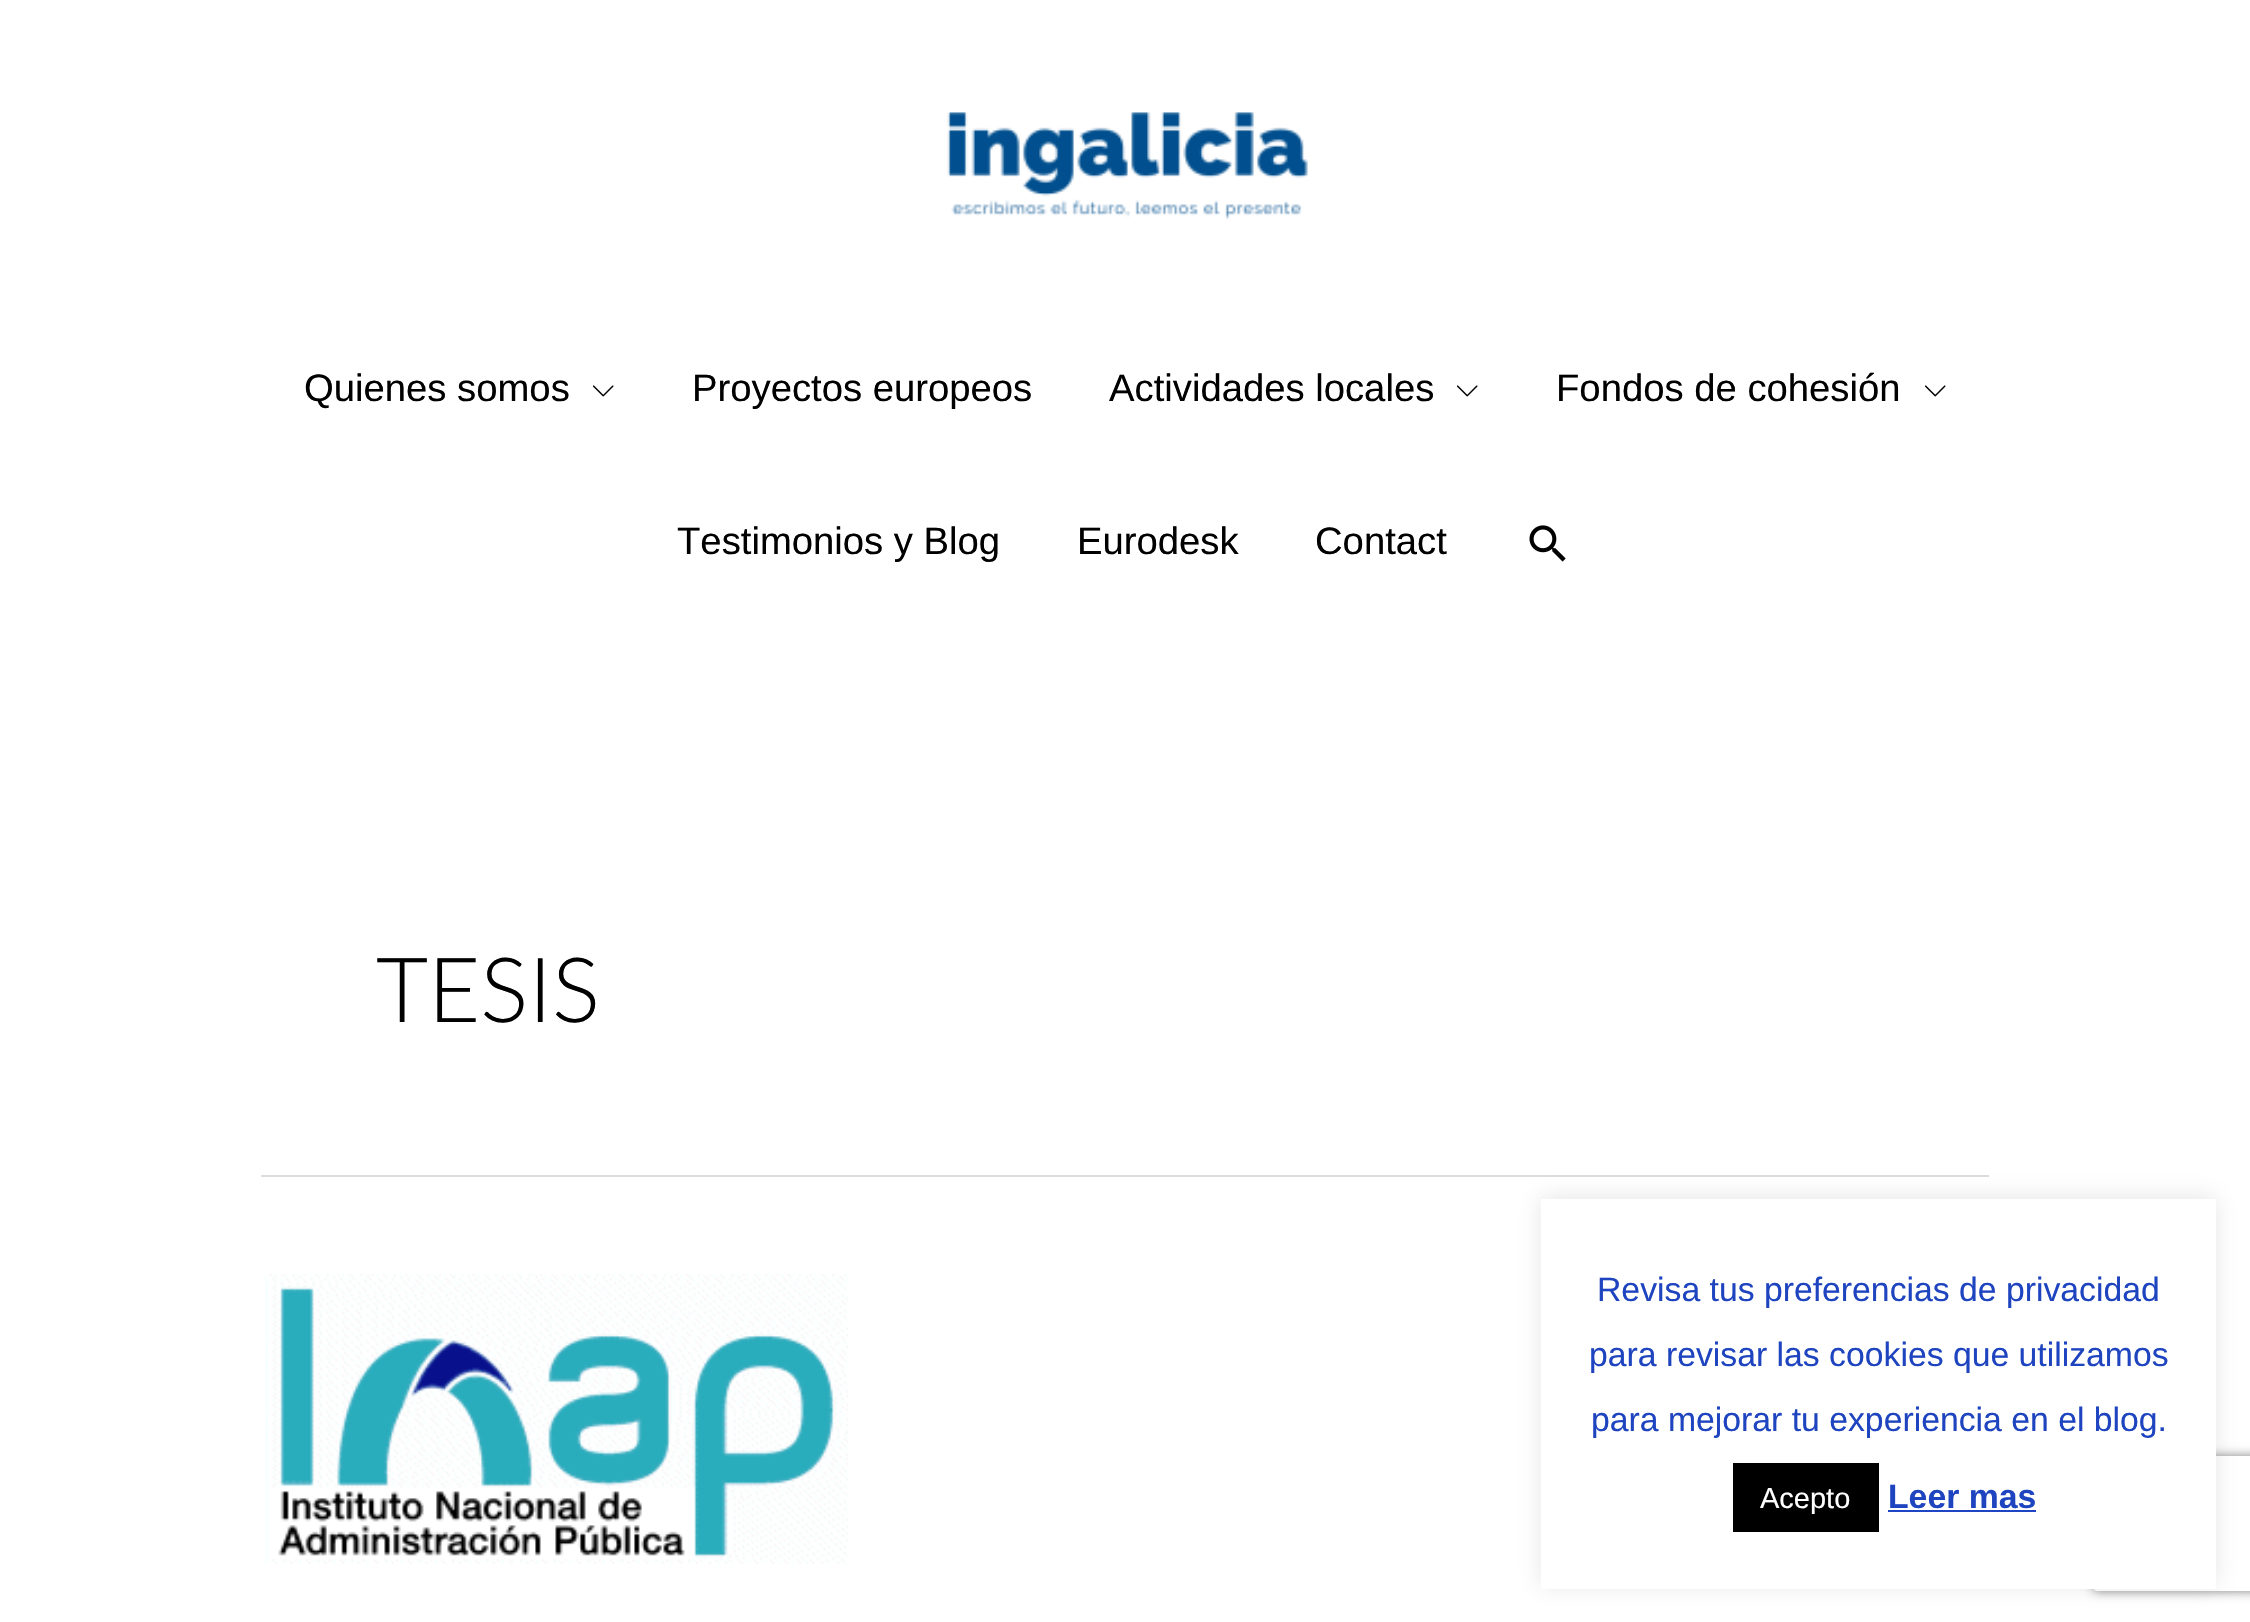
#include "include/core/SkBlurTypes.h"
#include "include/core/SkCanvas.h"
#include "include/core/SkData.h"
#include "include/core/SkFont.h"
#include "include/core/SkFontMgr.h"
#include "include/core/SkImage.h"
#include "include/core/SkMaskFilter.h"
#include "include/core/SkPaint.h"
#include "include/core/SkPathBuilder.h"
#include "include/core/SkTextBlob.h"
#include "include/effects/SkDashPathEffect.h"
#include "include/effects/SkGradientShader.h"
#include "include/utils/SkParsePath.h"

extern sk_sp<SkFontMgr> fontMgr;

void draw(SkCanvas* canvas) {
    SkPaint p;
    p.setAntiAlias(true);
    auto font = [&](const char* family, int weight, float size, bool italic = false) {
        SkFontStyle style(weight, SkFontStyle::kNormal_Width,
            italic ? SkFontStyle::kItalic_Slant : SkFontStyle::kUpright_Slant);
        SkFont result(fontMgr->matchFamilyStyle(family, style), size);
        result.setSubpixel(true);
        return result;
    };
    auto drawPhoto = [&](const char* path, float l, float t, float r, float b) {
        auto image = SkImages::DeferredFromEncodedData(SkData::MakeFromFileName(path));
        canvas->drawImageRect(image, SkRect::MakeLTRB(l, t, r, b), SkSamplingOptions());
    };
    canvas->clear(0xFFFFFFFF);
    drawPhoto("media/1.png", 947, 112, 1308, 219);
    auto font1 = font("Liberation Sans", 400, 38.25f);
    p.setColor(0xFF000000);
    canvas->drawString("Quienes somos", 304, 401, font1, p);
    drawPhoto("media/2.png", 592, 385, 614, 397);
    canvas->drawString("Proyectos europeos", 692, 401, font1, p);
    canvas->drawString("Actividades locales", 1109, 401, font1, p);
    drawPhoto("media/2.png", 1456, 385, 1478, 397);
    canvas->drawString("Fondos de cohesión", 1556, 401, font1, p);
    drawPhoto("media/2.png", 1924, 385, 1946, 397);
    {
        const struct { const char* s; float x, y; } items[] = {
            {"Testimonios y Blog", 677, 554},
            {"Eurodesk", 1077, 554},
            {"Contact", 1315, 554},
        };
        for (auto [s, x, y] : items) {
            canvas->drawString(s, x, y, font1, p);
        }
    }
    drawPhoto("media/3.png", 1529, 525, 1566, 562);
    p.setColor(0xFFDDDDDD);
    canvas->drawRect(SkRect::MakeLTRB(261, 1175, 1989, 1177), p);
    auto font2 = font("Lato", 300, 90);
    p.setColor(0xFF000000);
    canvas->drawString("TESIS", 376, 1022, font2, p);
    drawPhoto("media/4.png", 263, 1274, 848, 1564);
    p.setColor(0x4DACABAB);
    p.setMaskFilter(SkMaskFilter::MakeBlur(kNormal_SkBlurStyle, 11));
    canvas->drawRect(SkRect::MakeLTRB(1541, 1197, 2216, 1586), p);
    p.setMaskFilter(nullptr);
    canvas->save();
    canvas->clipPath(SkPathBuilder(SkPathFillType::kEvenOdd).moveTo(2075, 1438).lineTo(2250, 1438).lineTo(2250, 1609).lineTo(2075, 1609).close().moveTo(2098, 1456).lineTo(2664, 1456).cubicTo(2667, 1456, 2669, 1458, 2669, 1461).lineTo(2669, 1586).cubicTo(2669, 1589, 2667, 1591, 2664, 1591).lineTo(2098, 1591).cubicTo(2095, 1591, 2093, 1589, 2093, 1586).lineTo(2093, 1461).cubicTo(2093, 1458, 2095, 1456, 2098, 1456).close().detach(), true);
    p.setColor(0xFF808080);
    p.setMaskFilter(SkMaskFilter::MakeBlur(kNormal_SkBlurStyle, 5.5f));
    canvas->drawRoundRect(SkRect::MakeLTRB(2093, 1456, 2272, 1591), 5, 5, p);
    p.setMaskFilter(nullptr);
    canvas->restore();
    p.setColor(0xFFFFFFFF);
    canvas->drawRect(SkRect::MakeLTRB(1541, 1199, 2216, 1589), p);
    auto font3 = font("Liberation Sans", 400, 33.75f);
    p.setColor(0xFF1E44BF);
    {
        const struct { const char* s; float x, y; } items[] = {
            {"Revisa tus preferencias de privacidad", 1597, 1301},
            {"para revisar las cookies que utilizamos", 1589, 1366},
            {"para mejorar tu experiencia en el blog.", 1591, 1431},
        };
        for (auto [s, x, y] : items) {
            canvas->drawString(s, x, y, font3, p);
        }
    }
    p.setColor(0xFF000000);
    canvas->drawRect(SkRect::MakeLTRB(1733, 1463, 1879, 1532), p);
    auto font4 = font("Liberation Sans", 400, 29);
    p.setColor(0xFFFFFFFF);
    canvas->drawString("Acepto", 1760, 1508, font4, p);
    auto font5 = font("Liberation Sans", 700, 33.75f);
    p.setColor(0xFF1E44BF);
    canvas->drawString("Leer mas", 1888, 1508, font5, p);
    p.setColor(0xFF1F45C4);
    canvas->drawRect(SkRect::MakeLTRB(1888, 1510, 2036, 1512), p);
}
